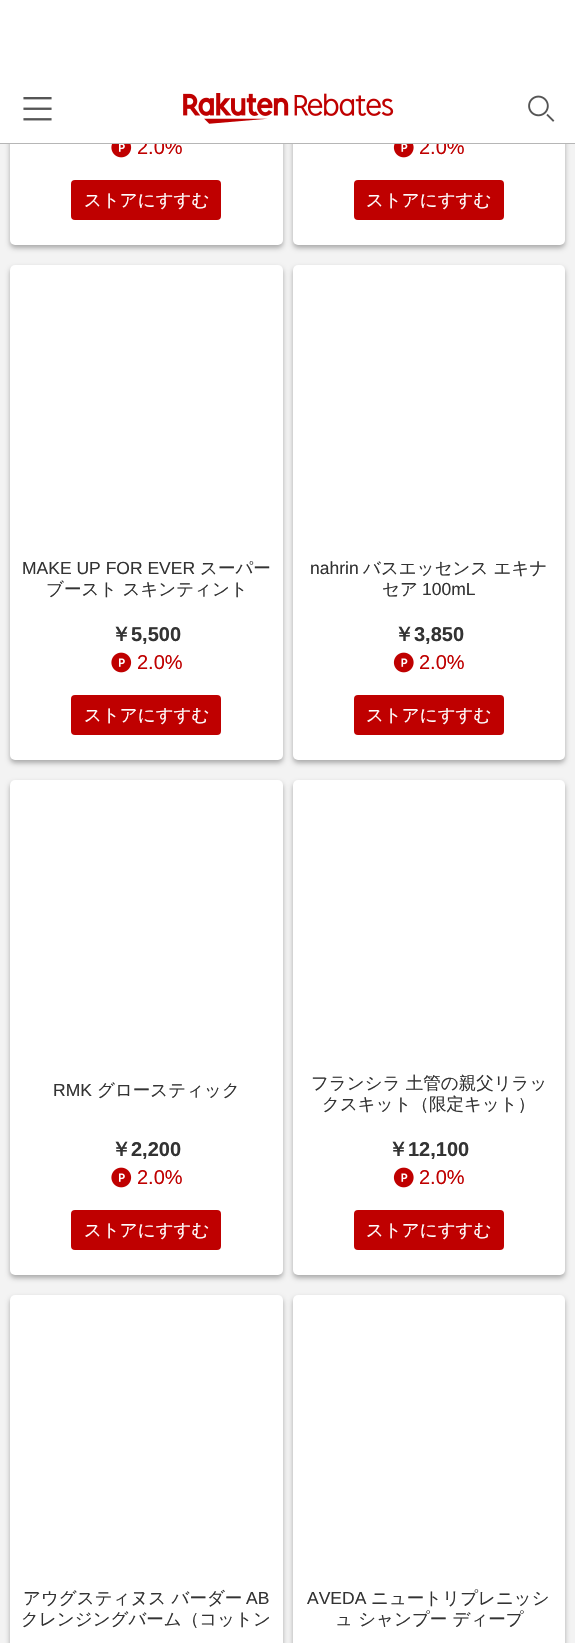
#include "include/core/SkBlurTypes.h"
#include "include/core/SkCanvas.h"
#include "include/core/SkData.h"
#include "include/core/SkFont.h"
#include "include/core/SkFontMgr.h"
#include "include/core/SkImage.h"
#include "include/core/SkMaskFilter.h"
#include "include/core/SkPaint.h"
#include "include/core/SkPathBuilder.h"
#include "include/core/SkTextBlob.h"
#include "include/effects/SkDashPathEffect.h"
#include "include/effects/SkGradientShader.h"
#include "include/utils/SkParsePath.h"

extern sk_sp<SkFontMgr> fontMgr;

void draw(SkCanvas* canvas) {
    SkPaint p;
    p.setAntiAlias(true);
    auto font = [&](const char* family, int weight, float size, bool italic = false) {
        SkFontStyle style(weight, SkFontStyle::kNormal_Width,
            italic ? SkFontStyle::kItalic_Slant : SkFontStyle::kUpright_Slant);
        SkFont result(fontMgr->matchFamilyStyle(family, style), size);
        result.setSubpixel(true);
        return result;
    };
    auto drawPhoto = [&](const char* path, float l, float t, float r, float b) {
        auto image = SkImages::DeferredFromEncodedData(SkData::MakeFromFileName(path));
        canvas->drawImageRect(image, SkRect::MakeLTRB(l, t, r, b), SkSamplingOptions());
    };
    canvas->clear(0xFFF3F3F3);
    p.setColor(0x4D000000);
    p.setMaskFilter(SkMaskFilter::MakeBlur(kNormal_SkBlurStyle, 2.5f));
    canvas->drawRoundRect(SkRect::MakeLTRB(10, -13, 283, 248), 5, 5, p);
    p.setMaskFilter(nullptr);
    p.setColor(0xFFFFFFFF);
    canvas->drawRoundRect(SkRect::MakeLTRB(10, -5, 283, 245), 5, 5, p);
    auto font1 = font("Liberation Sans", 400, 20);
    p.setColor(0xFFBF0000);
    canvas->drawString("2.0%", 137, 154, font1, p);
    p.setColor(0x4D000000);
    p.setMaskFilter(SkMaskFilter::MakeBlur(kNormal_SkBlurStyle, 2.5f));
    canvas->drawRoundRect(SkRect::MakeLTRB(293, -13, 565, 248), 5, 5, p);
    p.setMaskFilter(nullptr);
    p.setColor(0xFFFFFFFF);
    canvas->drawRoundRect(SkRect::MakeLTRB(293, -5, 565, 245), 5, 5, p);
    p.setColor(0xFFBF0000);
    canvas->drawString("2.0%", 419, 154, font1, p);
    p.setColor(0xFFFFFFFF);
    canvas->drawRect(SkRect::MakeLTRB(0, 0, 575, 143), p);
    p.setColor(0xFFB6B6B6);
    canvas->drawRect(SkRect::MakeLTRB(0, 143, 575, 144), p);
    drawPhoto("media/1.png", 23, 97, 52, 121);
    drawPhoto("media/2.png", 183, 93, 394, 124);
    drawPhoto("media/3.png", 528, 95, 555, 122);
    drawPhoto("media/4.png", 111, 144, 132, 158);
    p.setColor(0xFFBF0000);
    canvas->drawRoundRect(SkRect::MakeLTRB(71, 180, 221, 220), 4, 4, p);
    auto font2 = font("WenQuanYi Zen Hei", 500, 17.5f);
    p.setColor(0xFFFFFFFF);
    canvas->drawString("ストアにすすむ", 84, 206, font2, p);
    drawPhoto("media/5.png", 393, 144, 414, 158);
    p.setColor(0xFFBF0000);
    canvas->drawRoundRect(SkRect::MakeLTRB(354, 180, 504, 220), 4, 4, p);
    p.setColor(0xFFFFFFFF);
    canvas->drawString("ストアにすすむ", 366, 206, font2, p);
    p.setColor(0x4D000000);
    p.setMaskFilter(SkMaskFilter::MakeBlur(kNormal_SkBlurStyle, 2.5f));
    canvas->drawRoundRect(SkRect::MakeLTRB(10, 268, 283, 763), 5, 5, p);
    p.setMaskFilter(nullptr);
    p.setColor(0xFFFFFFFF);
    canvas->drawRoundRect(SkRect::MakeLTRB(10, 265, 283, 760), 5, 5, p);
    auto font3 = font("Liberation Sans", 400, 17.5f);
    p.setColor(0xFF333333);
    canvas->drawString("MAKE UP FOR EVER", 22, 574, font3, p);
    canvas->drawString("スーパー", 200, 574, font2, p);
    canvas->drawString("ブースト スキンティント", 46, 595, font2, p);
    auto font4 = font("WenQuanYi Zen Hei", 700, 20);
    canvas->drawString("￥", 111, 641, font4, p);
    auto font5 = font("Liberation Sans", 700, 20);
    canvas->drawString("5,500", 131, 641, font5, p);
    drawPhoto("media/6.png", 111, 652, 132, 673);
    p.setColor(0xFFBF0000);
    canvas->drawString("2.0%", 137, 669, font1, p);
    canvas->drawRoundRect(SkRect::MakeLTRB(71, 695, 221, 735), 4, 4, p);
    p.setColor(0xFFFFFFFF);
    canvas->drawString("ストアにすすむ", 84, 721, font2, p);
    p.setColor(0x4D000000);
    p.setMaskFilter(SkMaskFilter::MakeBlur(kNormal_SkBlurStyle, 2.5f));
    canvas->drawRoundRect(SkRect::MakeLTRB(293, 268, 565, 763), 5, 5, p);
    p.setMaskFilter(nullptr);
    p.setColor(0xFFFFFFFF);
    canvas->drawRoundRect(SkRect::MakeLTRB(293, 265, 565, 760), 5, 5, p);
    p.setColor(0xFF333333);
    canvas->drawString("nahrin", 310, 574, font3, p);
    canvas->drawString("バスエッセンス エキナ", 363, 574, font2, p);
    canvas->drawString("セア", 382, 595, font2, p);
    canvas->drawString("100mL", 422, 595, font3, p);
    canvas->drawString("￥", 394, 641, font4, p);
    canvas->drawString("3,850", 414, 641, font5, p);
    drawPhoto("media/7.png", 393, 652, 414, 673);
    p.setColor(0xFFBF0000);
    canvas->drawString("2.0%", 419, 669, font1, p);
    canvas->drawRoundRect(SkRect::MakeLTRB(354, 695, 504, 735), 4, 4, p);
    p.setColor(0xFFFFFFFF);
    canvas->drawString("ストアにすすむ", 366, 721, font2, p);
    p.setColor(0x4D000000);
    p.setMaskFilter(SkMaskFilter::MakeBlur(kNormal_SkBlurStyle, 2.5f));
    canvas->drawRoundRect(SkRect::MakeLTRB(10, 783, 283, 1278), 5, 5, p);
    p.setMaskFilter(nullptr);
    p.setColor(0xFFFFFFFF);
    canvas->drawRoundRect(SkRect::MakeLTRB(10, 780, 283, 1275), 5, 5, p);
    p.setColor(0xFF333333);
    canvas->drawString("RMK", 53, 1096, font3, p);
    canvas->drawString("グロースティック", 97, 1096, font2, p);
    canvas->drawString("￥", 111, 1156, font4, p);
    canvas->drawString("2,200", 131, 1156, font5, p);
    drawPhoto("media/6.png", 111, 1167, 132, 1188);
    p.setColor(0xFFBF0000);
    canvas->drawString("2.0%", 137, 1184, font1, p);
    canvas->drawRoundRect(SkRect::MakeLTRB(71, 1210, 221, 1250), 4, 4, p);
    p.setColor(0xFFFFFFFF);
    canvas->drawString("ストアにすすむ", 84, 1236, font2, p);
    p.setColor(0x4D000000);
    p.setMaskFilter(SkMaskFilter::MakeBlur(kNormal_SkBlurStyle, 2.5f));
    canvas->drawRoundRect(SkRect::MakeLTRB(293, 783, 565, 1278), 5, 5, p);
    p.setMaskFilter(nullptr);
    p.setColor(0xFFFFFFFF);
    canvas->drawRoundRect(SkRect::MakeLTRB(293, 780, 565, 1275), 5, 5, p);
    p.setColor(0xFF333333);
    canvas->drawString("フランシラ 土管の親父リラッ", 311, 1089, font2, p);
    canvas->drawString("クスキット（限定キット）", 322, 1110, font2, p);
    canvas->drawString("￥", 388, 1156, font4, p);
    canvas->drawString("12,100", 408, 1156, font5, p);
    drawPhoto("media/7.png", 393, 1167, 414, 1188);
    p.setColor(0xFFBF0000);
    canvas->drawString("2.0%", 419, 1184, font1, p);
    canvas->drawRoundRect(SkRect::MakeLTRB(354, 1210, 504, 1250), 4, 4, p);
    p.setColor(0xFFFFFFFF);
    canvas->drawString("ストアにすすむ", 366, 1236, font2, p);
    p.setColor(0x4D000000);
    p.setMaskFilter(SkMaskFilter::MakeBlur(kNormal_SkBlurStyle, 2.5f));
    canvas->drawRoundRect(SkRect::MakeLTRB(10, 1298, 283, 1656), 5, 5, p);
    p.setMaskFilter(nullptr);
    p.setColor(0xFFFFFFFF);
    canvas->drawRoundRect(SkRect::MakeLTRB(10, 1295, 283, 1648), 5, 5, p);
    p.setColor(0xFF333333);
    canvas->drawString("アウグスティヌス バーダー", 23, 1604, font2, p);
    canvas->drawString("AB", 246, 1604, font3, p);
    canvas->drawString("クレンジングバーム（コットン", 21, 1625, font2, p);
    p.setColor(0x4D000000);
    p.setMaskFilter(SkMaskFilter::MakeBlur(kNormal_SkBlurStyle, 2.5f));
    canvas->drawRoundRect(SkRect::MakeLTRB(293, 1298, 565, 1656), 5, 5, p);
    p.setMaskFilter(nullptr);
    p.setColor(0xFFFFFFFF);
    canvas->drawRoundRect(SkRect::MakeLTRB(293, 1295, 565, 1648), 5, 5, p);
    p.setColor(0xFF333333);
    canvas->drawString("AVEDA", 307, 1604, font3, p);
    canvas->drawString("ニュートリプレニッシ", 371, 1604, font2, p);
    canvas->drawString("ュ シャンプー ディープ", 335, 1625, font2, p);
}
